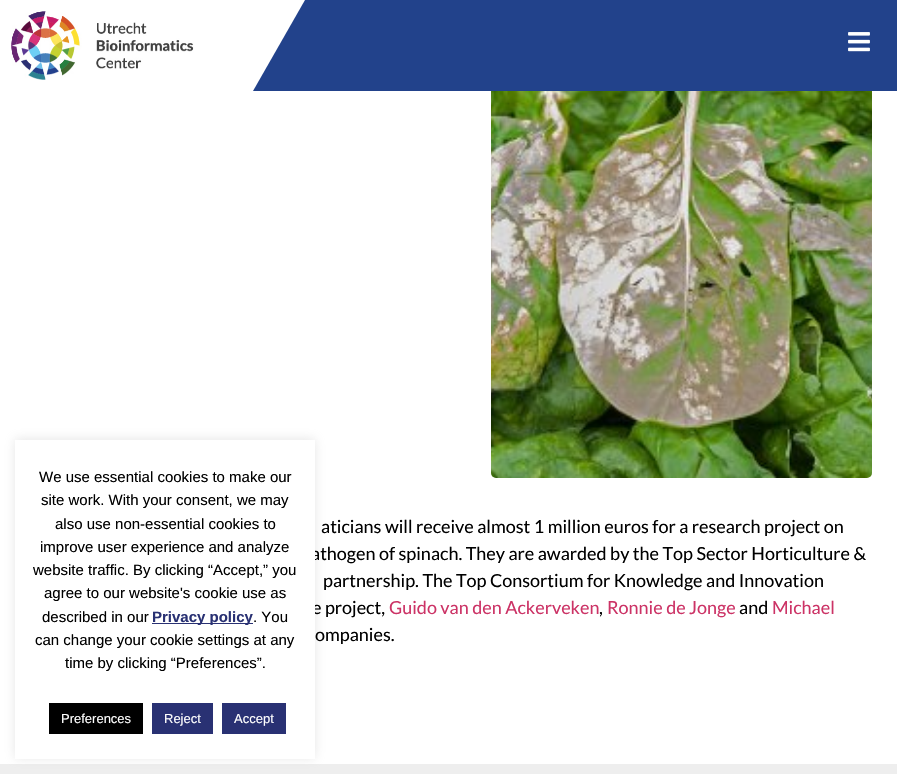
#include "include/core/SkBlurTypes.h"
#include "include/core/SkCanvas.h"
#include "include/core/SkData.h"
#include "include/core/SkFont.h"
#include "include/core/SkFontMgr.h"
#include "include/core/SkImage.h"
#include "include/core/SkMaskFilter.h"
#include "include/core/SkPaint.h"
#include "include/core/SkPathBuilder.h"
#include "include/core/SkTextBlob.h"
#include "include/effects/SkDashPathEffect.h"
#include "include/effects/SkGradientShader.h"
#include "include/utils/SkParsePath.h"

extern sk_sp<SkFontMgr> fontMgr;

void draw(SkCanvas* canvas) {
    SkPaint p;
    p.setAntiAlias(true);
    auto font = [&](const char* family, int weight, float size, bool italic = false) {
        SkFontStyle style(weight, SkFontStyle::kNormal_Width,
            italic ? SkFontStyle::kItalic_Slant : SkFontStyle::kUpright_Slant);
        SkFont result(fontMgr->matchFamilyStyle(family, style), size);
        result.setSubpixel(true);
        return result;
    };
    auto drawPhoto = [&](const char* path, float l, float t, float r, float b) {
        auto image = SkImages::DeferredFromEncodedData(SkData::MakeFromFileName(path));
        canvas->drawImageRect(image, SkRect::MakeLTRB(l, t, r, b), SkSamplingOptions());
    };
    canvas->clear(0xFFFFFFFF);
    p.setColor(0xFF22428B);
    canvas->drawRect(SkRect::MakeLTRB(544, 0, 897, 91), p);
    drawPhoto("media/1.png", 11, 11, 194, 80);
    canvas->drawPath(SkPathBuilder().moveTo(305, 0).lineTo(597, 0).lineTo(544, 91).lineTo(253, 91).close().detach(), p);
    drawPhoto("media/2.png", 848, 32, 870, 52);
    p.setColor(0xFFEEEEEE);
    canvas->drawRect(SkRect::MakeLTRB(0, 764, 897, 774), p);
    p.setColor(0x4DACABAB);
    p.setMaskFilter(SkMaskFilter::MakeBlur(kNormal_SkBlurStyle, 5));
    canvas->drawRect(SkRect::MakeLTRB(15, 439, 315, 758), p);
    p.setMaskFilter(nullptr);
    auto font1 = font("Lato", 400, 18);
    p.setColor(0xFF000000);
    canvas->drawString("athogen of spinach. They are awarded by the Top Sector Horticulture &", 311, 560, font1, p);
    canvas->drawString("e project,", 312, 614, font1, p);
    p.setColor(0xFFFFFFFF);
    canvas->drawRect(SkRect::MakeLTRB(15, 440, 315, 759), p);
    auto font2 = font("Liberation Sans", 400, 15);
    p.setColor(0xFF000000);
    {
        const struct { const char* s; float x, y; } items[] = {
            {"We use essential cookies to make our", 39, 482},
            {"site work. With your consent, we may", 41, 505},
            {"also use non-essential cookies to", 55, 529},
            {"improve user experience and analyze", 40, 552},
            {"website traffic. By clicking “Accept,” you", 33, 575},
            {"agree to our website's cookie use as", 44, 598},
            {"described in our", 42, 622},
        };
        for (auto [s, x, y] : items) {
            canvas->drawString(s, x, y, font2, p);
        }
    }
    p.setColor(0xFF293173);
    canvas->drawRect(SkRect::MakeLTRB(152, 623, 253, 624), p);
    auto font3 = font("Liberation Sans", 700, 15);
    canvas->drawString("Privacy policy", 152, 622, font3, p);
    p.setColor(0xFF000000);
    {
        const struct { const char* s; float x, y; } items[] = {
            {". You", 253, 622},
            {"can change your cookie settings at any", 35, 645},
            {"time by clicking “Preferences”.", 65, 668},
        };
        for (auto [s, x, y] : items) {
            canvas->drawString(s, x, y, font2, p);
        }
    }
    canvas->drawRect(SkRect::MakeLTRB(49, 703, 143, 734), p);
    auto font4 = font("Liberation Sans", 400, 13);
    p.setColor(0xFFFFFFFF);
    canvas->drawString("Preferences", 61, 723, font4, p);
    p.setColor(0xFF293173);
    canvas->drawRect(SkRect::MakeLTRB(152, 703, 213, 734), p);
    p.setColor(0xFFFFFFFF);
    canvas->drawString("Reject", 164, 723, font4, p);
    p.setColor(0xFF293173);
    canvas->drawRect(SkRect::MakeLTRB(222, 703, 286, 734), p);
    p.setColor(0xFFFFFFFF);
    canvas->drawString("Accept", 234, 723, font4, p);
    drawPhoto("media/3.png", 491, 91, 872, 478);
    p.setColor(0xFF000000);
    canvas->drawString("aticians will receive almost 1 million euros for a research project on", 321, 533, font1, p);
    canvas->drawString("partnership. The Top Consortium for Knowledge and Innovation", 323, 587, font1, p);
    p.setColor(0xFFCC3366);
    canvas->drawString("Guido van den Ackerveken", 389, 614, font1, p);
    p.setColor(0xFF000000);
    canvas->drawString(",", 599, 614, font1, p);
    p.setColor(0xFFCC3366);
    canvas->drawString("Ronnie de Jonge", 607, 614, font1, p);
    p.setColor(0xFF000000);
    canvas->drawString("and", 739, 614, font1, p);
    p.setColor(0xFFCC3366);
    canvas->drawString("Michael", 772, 614, font1, p);
    p.setColor(0xFF000000);
    canvas->drawString("ompanies.", 315, 641, font1, p);
}
